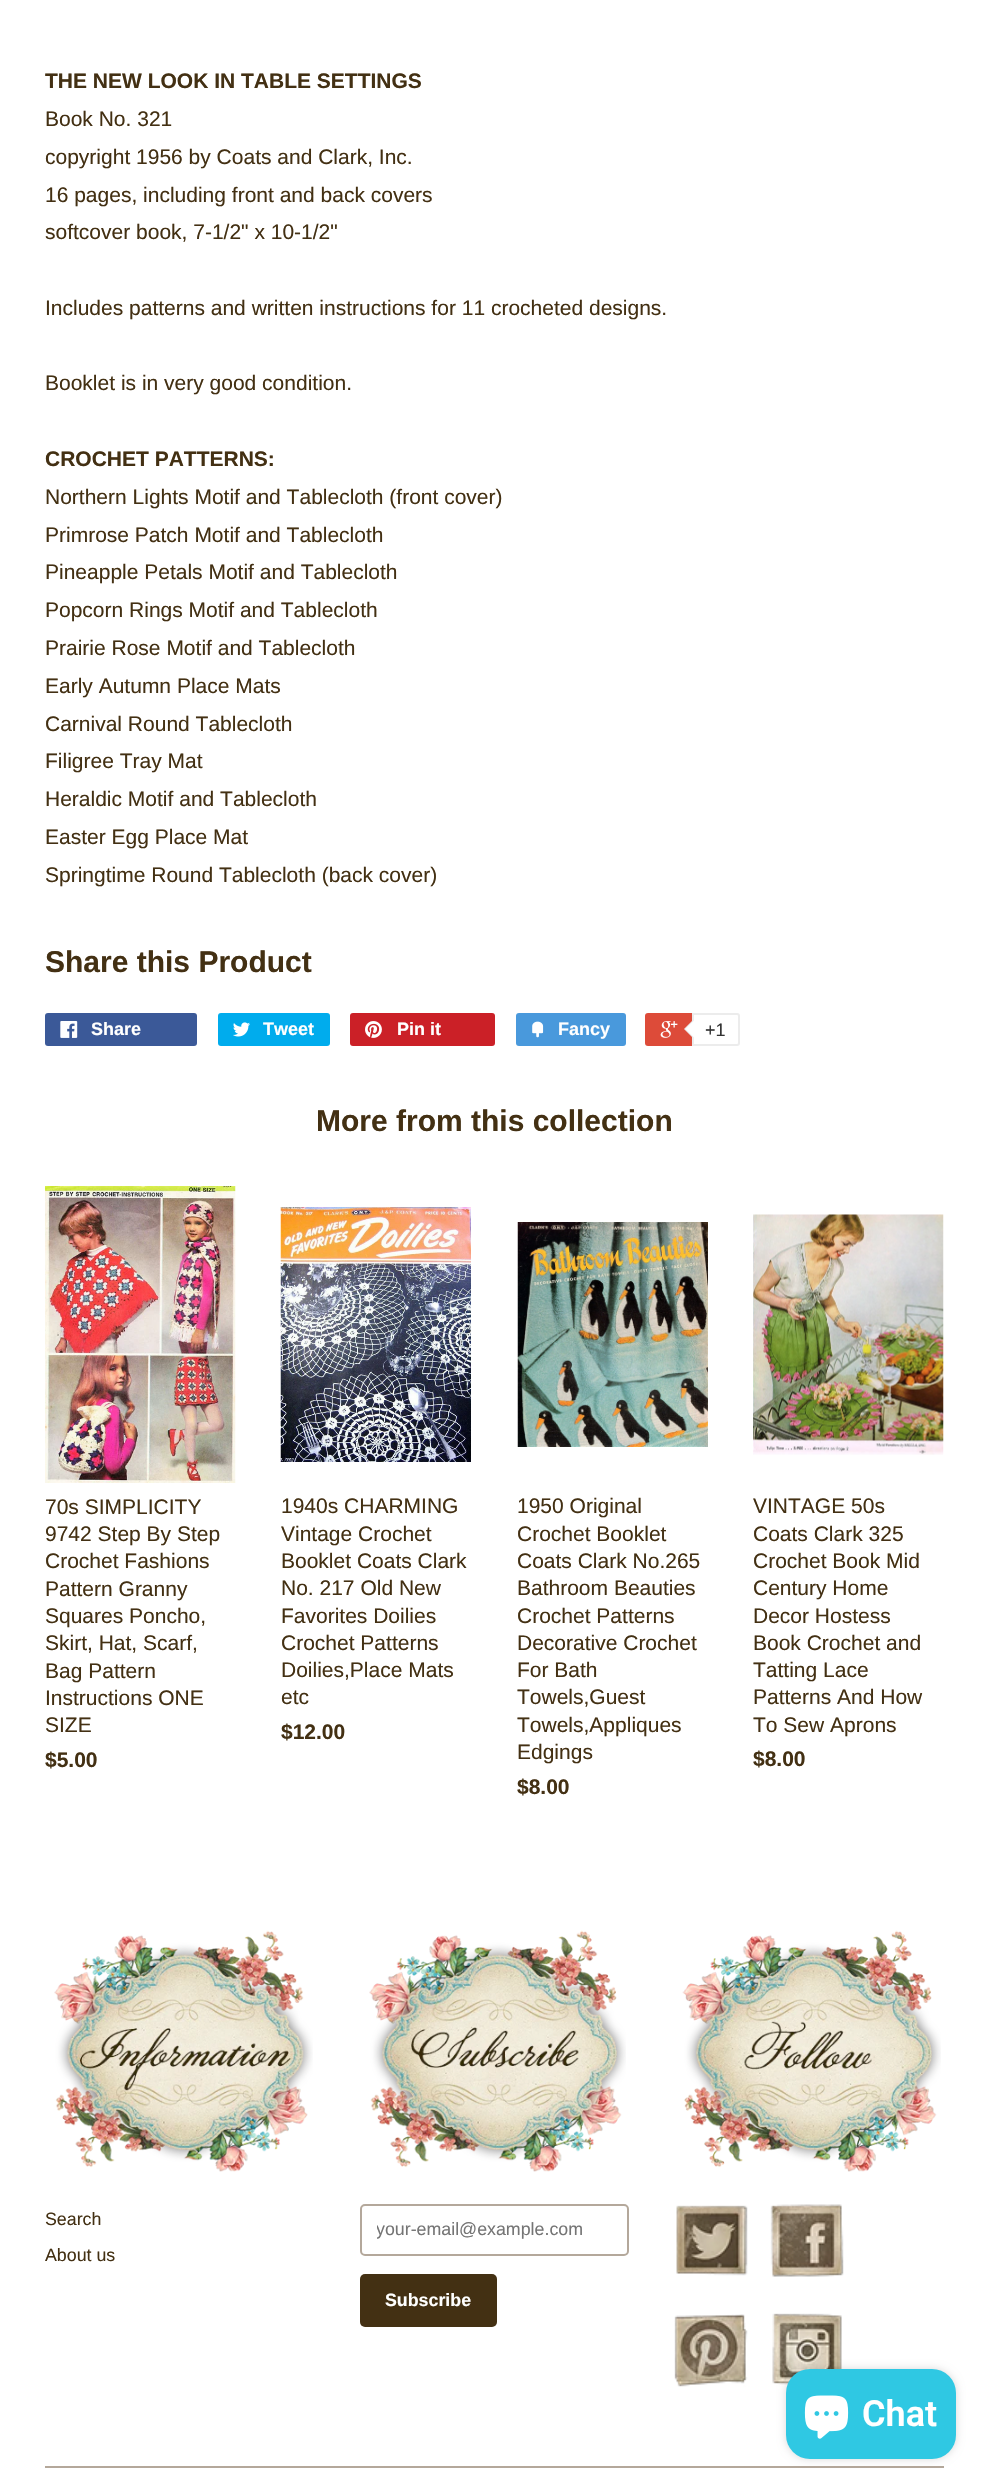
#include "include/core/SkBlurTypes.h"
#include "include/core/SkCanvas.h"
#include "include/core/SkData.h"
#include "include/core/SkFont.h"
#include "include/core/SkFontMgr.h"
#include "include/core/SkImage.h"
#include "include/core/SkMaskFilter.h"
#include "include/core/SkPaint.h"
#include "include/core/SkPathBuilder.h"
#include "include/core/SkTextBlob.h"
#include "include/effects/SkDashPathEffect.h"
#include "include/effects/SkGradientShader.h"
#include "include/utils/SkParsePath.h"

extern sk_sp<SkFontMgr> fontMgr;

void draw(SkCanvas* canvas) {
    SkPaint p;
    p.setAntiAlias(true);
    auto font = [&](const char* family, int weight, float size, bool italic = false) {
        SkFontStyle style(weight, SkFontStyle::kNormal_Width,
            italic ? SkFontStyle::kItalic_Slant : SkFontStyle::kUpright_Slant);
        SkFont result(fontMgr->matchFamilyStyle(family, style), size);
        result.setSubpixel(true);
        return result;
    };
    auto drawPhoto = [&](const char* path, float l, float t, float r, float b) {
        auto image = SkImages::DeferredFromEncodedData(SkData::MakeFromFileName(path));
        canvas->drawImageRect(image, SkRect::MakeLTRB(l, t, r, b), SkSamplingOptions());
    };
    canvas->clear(0xFFFFFFFF);
    auto font1 = font("Liberation Sans", 700, 21);
    p.setColor(0xFF433013);
    canvas->drawString("THE NEW LOOK IN TABLE SETTINGS", 45, 88, font1, p);
    auto font2 = font("Liberation Sans", 400, 21);
    {
        const struct { const char* s; float x, y; } items[] = {
            {"Book No. 321", 45, 126},
            {"copyright 1956 by Coats and Clark, Inc.", 45, 164},
            {"16 pages, including front and back covers", 45, 202},
            {"softcover book, 7-1/2\" x 10-1/2\"", 45, 239},
            {"Includes patterns and written instructions for 11 crocheted designs.", 45, 315},
            {"Booklet is in very good condition.", 45, 390},
        };
        for (auto [s, x, y] : items) {
            canvas->drawString(s, x, y, font2, p);
        }
    }
    canvas->drawString("CROCHET PATTERNS:", 45, 466, font1, p);
    {
        const struct { const char* s; float x, y; } items[] = {
            {"Northern Lights Motif and Tablecloth (front cover)", 45, 504},
            {"Primrose Patch Motif and Tablecloth", 45, 542},
            {"Pineapple Petals Motif and Tablecloth", 45, 579},
            {"Popcorn Rings Motif and Tablecloth", 45, 617},
            {"Prairie Rose Motif and Tablecloth", 45, 655},
            {"Early Autumn Place Mats", 45, 693},
            {"Carnival Round Tablecloth", 45, 731},
            {"Filigree Tray Mat", 45, 768},
            {"Heraldic Motif and Tablecloth", 45, 806},
            {"Easter Egg Place Mat", 45, 844},
            {"Springtime Round Tablecloth (back cover)", 45, 882},
        };
        for (auto [s, x, y] : items) {
            canvas->drawString(s, x, y, font2, p);
        }
    }
    auto font3 = font("Liberation Sans", 700, 30);
    canvas->drawString("Share this Product", 45, 972, font3, p);
    p.setColor(0xFF3B5998);
    canvas->drawRoundRect(SkRect::MakeLTRB(45, 1013, 197, 1046), 3, 3, p);
    drawPhoto("media/1.png", 60, 1021, 78, 1038);
    auto font4 = font("Liberation Sans", 700, 18);
    p.setColor(0xFFFFFFFF);
    canvas->drawString("Share", 91, 1035, font4, p);
    p.setColor(0xFF00ACED);
    canvas->drawRoundRect(SkRect::MakeLTRB(218, 1013, 330, 1046), 3, 3, p);
    drawPhoto("media/2.png", 233, 1022, 250, 1037);
    p.setColor(0xFFFFFFFF);
    canvas->drawString("Tweet", 263, 1035, font4, p);
    p.setColor(0xFFCB2027);
    canvas->drawRoundRect(SkRect::MakeLTRB(350, 1013, 495, 1046), 3, 3, p);
    drawPhoto("media/3.png", 365, 1021, 382, 1038);
    p.setColor(0xFFFFFFFF);
    canvas->drawString("Pin it", 397, 1035, font4, p);
    p.setColor(0xFF4999DC);
    canvas->drawRoundRect(SkRect::MakeLTRB(516, 1013, 626, 1046), 3, 3, p);
    drawPhoto("media/4.png", 532, 1021, 544, 1038);
    p.setColor(0xFFFFFFFF);
    canvas->drawString("Fancy", 558, 1035, font4, p);
    p.setColor(0xFFDD4B39);
    canvas->drawRoundRect(SkRect::MakeLTRB(645, 1013, 737, 1046), 3, 3, p);
    drawPhoto("media/5.png", 660, 1021, 678, 1038);
    p.setColor(0xFFFFFFFF);
    canvas->drawPath(SkPathBuilder().moveTo(693, 1014).lineTo(737, 1014).cubicTo(738, 1014, 739, 1015, 739, 1016).lineTo(739, 1043).cubicTo(739, 1044, 738, 1045, 737, 1045).lineTo(693, 1045).close().detach(), p);
    p.setStyle(SkPaint::kStroke_Style);
    p.setStrokeWidth(2);
    p.setColor(0xFFECECEC);
    canvas->drawPath(SkPathBuilder().moveTo(693, 1014).lineTo(737, 1014).cubicTo(738, 1014, 739, 1015, 739, 1016).lineTo(739, 1043).cubicTo(739, 1044, 738, 1045, 737, 1045).lineTo(693, 1045).close().detach(), p);
    p.setStyle(SkPaint::kFill_Style);
    canvas->drawPath(SkPathBuilder().moveTo(693, 1020).lineTo(693, 1038).lineTo(684, 1029).close().detach(), p);
    p.setColor(0xFFFFFFFF);
    canvas->drawPath(SkPathBuilder().moveTo(694.5f, 1020).lineTo(694.5f, 1038).lineTo(685.5f, 1029).close().detach(), p);
    auto font5 = font("Liberation Sans", 400, 18);
    p.setColor(0xFF333333);
    canvas->drawString("+1", 705, 1036, font5, p);
    p.setColor(0xFF433013);
    canvas->drawString("More from this collection", 316, 1131, font3, p);
    drawPhoto("media/6.png", 45, 1186, 236, 1483);
    {
        const struct { const char* s; float x, y; } items[] = {
            {"70s SIMPLICITY", 45, 1514},
            {"9742 Step By Step", 45, 1541},
            {"Crochet Fashions", 45, 1568},
            {"Pattern Granny", 45, 1596},
            {"Squares Poncho,", 45, 1623},
            {"Skirt, Hat, Scarf,", 45, 1650},
            {"Bag Pattern", 45, 1678},
            {"Instructions ONE", 45, 1705},
            {"SIZE", 45, 1732},
        };
        for (auto [s, x, y] : items) {
            canvas->drawString(s, x, y, font2, p);
        }
    }
    canvas->drawString("$5.00", 45, 1767, font1, p);
    drawPhoto("media/7.png", 280, 1207, 471, 1462);
    {
        const struct { const char* s; float x, y; } items[] = {
            {"1940s CHARMING", 281, 1513},
            {"Vintage Crochet", 281, 1541},
            {"Booklet Coats Clark", 281, 1568},
            {"No. 217 Old New", 281, 1595},
            {"Favorites Doilies", 281, 1623},
            {"Crochet Patterns", 281, 1650},
            {"Doilies,Place Mats", 281, 1677},
            {"etc", 281, 1704},
        };
        for (auto [s, x, y] : items) {
            canvas->drawString(s, x, y, font2, p);
        }
    }
    canvas->drawString("$12.00", 281, 1739, font1, p);
    drawPhoto("media/8.png", 517, 1222, 708, 1447);
    {
        const struct { const char* s; float x, y; } items[] = {
            {"1950 Original", 517, 1513},
            {"Crochet Booklet", 517, 1541},
            {"Coats Clark No.265", 517, 1568},
            {"Bathroom Beauties", 517, 1595},
            {"Crochet Patterns", 517, 1623},
            {"Decorative Crochet", 517, 1650},
            {"For Bath", 517, 1677},
            {"Towels,Guest", 517, 1704},
            {"Towels,Appliques", 517, 1732},
            {"Edgings", 517, 1759},
        };
        for (auto [s, x, y] : items) {
            canvas->drawString(s, x, y, font2, p);
        }
    }
    canvas->drawString("$8.00", 517, 1794, font1, p);
    drawPhoto("media/9.png", 753, 1214, 944, 1455);
    {
        const struct { const char* s; float x, y; } items[] = {
            {"VINTAGE 50s", 753, 1513},
            {"Coats Clark 325", 753, 1541},
            {"Crochet Book Mid", 753, 1568},
            {"Century Home", 753, 1595},
            {"Decor Hostess", 753, 1623},
            {"Book Crochet and", 753, 1650},
            {"Tatting Lace", 753, 1677},
            {"Patterns And How", 753, 1704},
            {"To Sew Aprons", 753, 1732},
        };
        for (auto [s, x, y] : items) {
            canvas->drawString(s, x, y, font2, p);
        }
    }
    canvas->drawString("$8.00", 753, 1766, font1, p);
    drawPhoto("media/10.png", 54, 1930, 313, 2172);
    auto font6 = font("Liberation Sans", 400, 17.8f);
    canvas->drawString("Search", 45, 2225, font6, p);
    canvas->drawString("About us", 45, 2261, font6, p);
    drawPhoto("media/11.png", 369, 1930, 626, 2172);
    p.setStyle(SkPaint::kStroke_Style);
    p.setColor(0xFFB4A89B);
    canvas->drawRoundRect(SkRect::MakeLTRB(361, 2205, 628, 2255), 4, 4, p);
    canvas->save();
    canvas->clipRect(SkRect::MakeLTRB(377, 2219, 612, 2240));
    p.setStyle(SkPaint::kFill_Style);
    p.setColor(0xFF757575);
    canvas->drawString("your-email@example.com", 376, 2235, font6, p);
    canvas->restore();
    p.setColor(0xFF433013);
    canvas->drawRoundRect(SkRect::MakeLTRB(360, 2274, 497, 2327), 5, 5, p);
    auto font7 = font("Liberation Sans", 700, 17.8f);
    p.setColor(0xFFFFFFFF);
    canvas->drawString("Subscribe", 385, 2306, font7, p);
    drawPhoto("media/12.png", 682, 1930, 941, 2172);
    drawPhoto("media/13.png", 676, 2205, 748, 2276);
    drawPhoto("media/14.png", 770, 2204, 844, 2277);
    drawPhoto("media/15.png", 674, 2314, 748, 2387);
    drawPhoto("media/16.png", 772, 2313, 842, 2385);
    p.setColor(0xFFB4A89B);
    canvas->drawRect(SkRect::MakeLTRB(45, 2466, 944, 2468), p);
    p.setColor(0x26000000);
    p.setMaskFilter(SkMaskFilter::MakeBlur(kNormal_SkBlurStyle, 4));
    canvas->drawRoundRect(SkRect::MakeLTRB(786, 2369, 956, 2459), 24, 24, p);
    p.setMaskFilter(nullptr);
    p.setColor(0xFF2FC8E3);
    canvas->drawRoundRect(SkRect::MakeLTRB(786, 2369, 956, 2459), 24, 24, p);
    drawPhoto("media/17.png", 804, 2395, 849, 2439);
    auto font8 = font("Roboto", 600, 36);
    p.setColor(0xFFFFFFFF);
    canvas->drawString("Chat", 862, 2426, font8, p);
}
